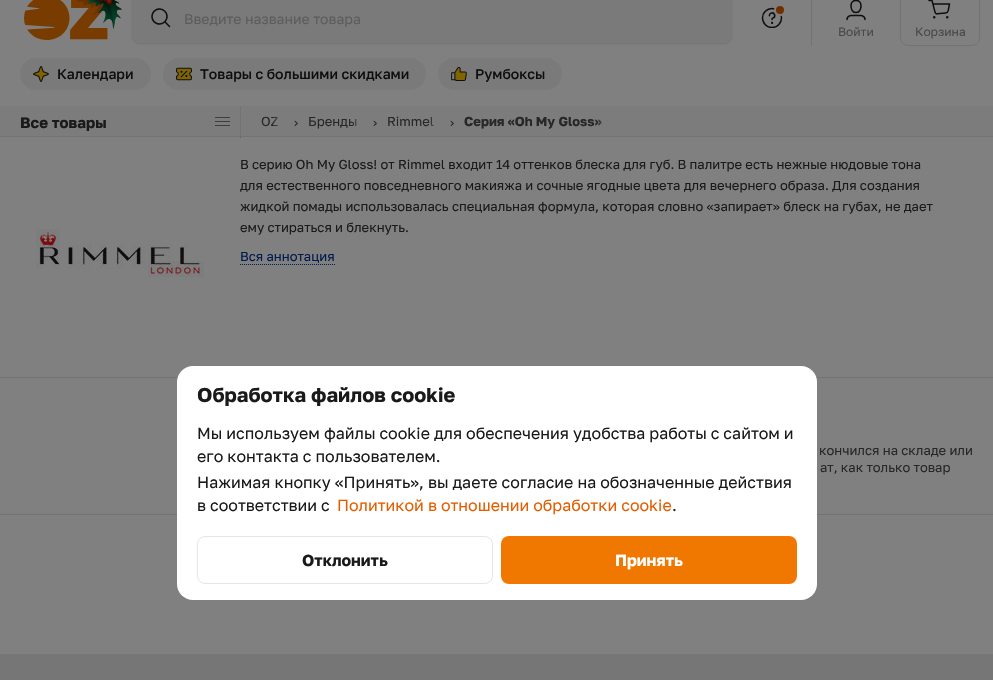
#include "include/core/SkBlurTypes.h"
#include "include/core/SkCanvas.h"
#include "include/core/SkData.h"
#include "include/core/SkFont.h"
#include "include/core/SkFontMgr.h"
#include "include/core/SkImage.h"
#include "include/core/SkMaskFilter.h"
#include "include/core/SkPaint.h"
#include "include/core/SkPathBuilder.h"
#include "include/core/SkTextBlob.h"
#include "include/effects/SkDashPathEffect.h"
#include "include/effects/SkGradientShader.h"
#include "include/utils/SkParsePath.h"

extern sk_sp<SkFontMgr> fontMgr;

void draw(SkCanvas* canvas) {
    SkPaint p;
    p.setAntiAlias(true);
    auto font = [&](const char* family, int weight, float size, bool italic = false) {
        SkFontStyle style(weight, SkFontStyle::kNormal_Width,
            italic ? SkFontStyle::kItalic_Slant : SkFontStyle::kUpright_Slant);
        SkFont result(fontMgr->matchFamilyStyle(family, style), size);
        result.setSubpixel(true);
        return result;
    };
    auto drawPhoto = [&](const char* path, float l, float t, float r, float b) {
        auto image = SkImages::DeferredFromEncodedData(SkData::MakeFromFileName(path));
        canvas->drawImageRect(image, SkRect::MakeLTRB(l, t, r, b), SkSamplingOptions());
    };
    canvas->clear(0xFF767676);
    p.setColor(0xFF808080);
    canvas->drawRect(SkRect::MakeLTRB(0, 0, 993, 654), p);
    drawPhoto("media/1.png", 24, 0, 122, 40);
    p.setColor(0x1A000000);
    p.setMaskFilter(SkMaskFilter::MakeBlur(kNormal_SkBlurStyle, 1));
    canvas->drawRoundRect(SkRect::MakeLTRB(132, -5, 732, 44), 8, 8, p);
    p.setMaskFilter(nullptr);
    p.setColor(0xFF7A7A7A);
    canvas->drawRoundRect(SkRect::MakeLTRB(132, -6, 732, 43), 8, 8, p);
    drawPhoto("media/2.png", 151, 8, 171, 28);
    auto font1 = font("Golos", 400, 14);
    p.setColor(0xFF5C5C5C);
    canvas->drawString("Введите название товара", 184, 24, font1, p);
    p.setColor(0xFF737373);
    canvas->drawRect(SkRect::MakeLTRB(811, 0, 812, 46), p);
    drawPhoto("media/3.png", 761, 6, 784, 28);
    drawPhoto("media/4.png", 846, 0, 866, 21);
    auto font2 = font("Golos", 400, 12);
    p.setColor(0xFF484848);
    canvas->drawString("Войти", 838, 36, font2, p);
    p.setStyle(SkPaint::kStroke_Style);
    p.setStrokeWidth(1);
    p.setColor(0xFF737373);
    canvas->drawRoundRect(SkRect::MakeLTRB(900.5f, -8.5f, 979.5f, 45.5f), 7.5f, 7.5f, p);
    drawPhoto("media/5.png", 928, 0, 951, 19);
    p.setStyle(SkPaint::kFill_Style);
    p.setColor(0xFF484848);
    canvas->drawString("Корзина", 915, 36, font2, p);
    p.setColor(0xFF7A7A7A);
    canvas->drawRoundRect(SkRect::MakeLTRB(20, 58, 151, 90), 16, 16, p);
    drawPhoto("media/6.png", 33, 66, 49, 82);
    auto font3 = font("Golos", 500, 14);
    p.setColor(0xFF0E0E0E);
    canvas->drawString("Календари", 57, 79, font3, p);
    p.setColor(0xFF7A7A7A);
    canvas->drawRoundRect(SkRect::MakeLTRB(163, 58, 426, 90), 16, 16, p);
    drawPhoto("media/7.png", 176, 67, 192, 81);
    p.setColor(0xFF0E0E0E);
    canvas->drawString("Товары с большими скидками", 200, 79, font3, p);
    p.setColor(0xFF7A7A7A);
    canvas->drawRoundRect(SkRect::MakeLTRB(438, 58, 562, 90), 16, 16, p);
    drawPhoto("media/8.png", 451, 67, 467, 81);
    p.setColor(0xFF0E0E0E);
    canvas->drawString("Румбоксы", 475, 79, font3, p);
    p.setColor(0xFF7C7C7C);
    canvas->drawRect(SkRect::MakeLTRB(0, 106, 240, 136), p);
    auto font4 = font("Golos", 700, 15);
    p.setColor(0xFF1A1A1A);
    canvas->drawString("Все товары", 20, 128, font4, p);
    drawPhoto("media/9.png", 215, 117, 230, 126);
    {
        const struct { float l, t, r, b; SkColor color; } items[] = {
            {240, 137, 241, 138, 0xFF606060},
            {241, 106, 993, 136, 0xFF7C7C7C},
            {0, 136, 993, 137, 0xFF737373},
            {240, 106, 241, 137, 0xFF737373},
        };
        for (auto [l, t, r, b, color] : items) {
            p.setColor(color);
            canvas->drawRect(SkRect::MakeLTRB(l, t, r, b), p);
        }
    }
    auto font5 = font("Golos", 400, 13);
    p.setColor(0xFF272727);
    canvas->drawString("OZ", 261, 126, font5, p);
    {
        const SkColor colors[] = {0x007C7C7C, 0xFF7C7C7C};
        const float stops[] = {0, 0.5f};
        const SkPoint ends[] = {{273, 122}, {298, 122}};
        p.setShader(SkGradientShader::MakeLinear(ends, colors, stops, 2, SkTileMode::kClamp));
        p.setAlpha(255);
    }
    canvas->drawRect(SkRect::MakeLTRB(273, 116, 278, 126), p);
    p.setShader(nullptr);
    p.setColor(0xFF272727);
    canvas->drawString("›", 294, 127, font5, p);
    canvas->drawString("Бренды", 308, 126, font5, p);
    {
        const SkColor colors[] = {0x007C7C7C, 0xFF7C7C7C};
        const float stops[] = {0, 0.5f};
        const SkPoint ends[] = {{352, 122}, {377, 122}};
        p.setShader(SkGradientShader::MakeLinear(ends, colors, stops, 2, SkTileMode::kClamp));
        p.setAlpha(255);
    }
    canvas->drawRect(SkRect::MakeLTRB(352, 119, 357, 126), p);
    p.setShader(nullptr);
    p.setColor(0xFF272727);
    canvas->drawString("›", 373, 127, font5, p);
    canvas->drawString("Rimmel", 387, 126, font5, p);
    {
        const SkColor colors[] = {0x007C7C7C, 0xFF7C7C7C};
        const float stops[] = {0, 0.5f};
        const SkPoint ends[] = {{429, 122}, {454, 122}};
        p.setShader(SkGradientShader::MakeLinear(ends, colors, stops, 2, SkTileMode::kClamp));
        p.setAlpha(255);
    }
    canvas->drawRect(SkRect::MakeLTRB(431, 117, 434, 126), p);
    p.setShader(nullptr);
    p.setColor(0xFF272727);
    canvas->drawString("›", 450, 127, font5, p);
    auto font6 = font("Golos", 700, 13);
    canvas->drawString("Серия «Oh My Gloss»", 464, 126, font6, p);
    {
        const SkColor colors[] = {0x007C7C7C, 0xFF7C7C7C};
        const float stops[] = {0, 0.5f};
        const SkPoint ends[] = {{597, 122}, {622, 122}};
        p.setShader(SkGradientShader::MakeLinear(ends, colors, stops, 2, SkTileMode::kClamp));
        p.setAlpha(255);
    }
    canvas->drawRect(SkRect::MakeLTRB(597, 119, 602, 126), p);
    drawPhoto("media/10.png", 36, 229, 204, 277);
    p.setShader(nullptr);
    p.setColor(0xFF1A1A1A);
    {
        const struct { const char* s; float x, y; } items[] = {
            {"В серию Oh My Gloss! от Rimmel входит 14 оттенков блеска для губ. В палитре есть нежные нюдовые тона", 240, 169},
            {"для естественного повседневного макияжа и сочные ягодные цвета для вечернего образа. Для создания", 240, 190},
            {"жидкой помады использовалась специальная формула, которая словно «запирает» блеск на губах, не дает", 240, 211},
            {"ему стираться и блекнуть.", 240, 232},
        };
        for (auto [s, x, y] : items) {
            canvas->drawString(s, x, y, font5, p);
        }
    }
    p.setColor(0xFF001A4D);
    canvas->drawString("Вся аннотация", 240, 261, font5, p);
    p.setStyle(SkPaint::kStroke_Style);
    p.setPathEffect(SkDashPathEffect::Make({{1, 1}}, 0));
    canvas->drawPath(SkPathBuilder().moveTo(240, 264.5f).lineTo(335, 264.5f).detach(), p);
    p.setPathEffect(nullptr);
    p.setStyle(SkPaint::kFill_Style);
    p.setColor(0xFF737373);
    canvas->drawRect(SkRect::MakeLTRB(0, 377, 993, 378), p);
    canvas->drawRect(SkRect::MakeLTRB(0, 514, 993, 515), p);
    p.setColor(0xFF272727);
    canvas->drawString("кончился на складе или", 819, 455, font5, p);
    canvas->drawString("ат, как только товар", 820, 472, font5, p);
    p.setColor(0xFFFFFFFF);
    canvas->drawRoundRect(SkRect::MakeLTRB(177, 366, 817, 600), 16, 16, p);
    auto font7 = font("Golos", 700, 20);
    p.setColor(0xFF1A1A1A);
    canvas->drawString("Обработка файлов cookie", 197, 402, font7, p);
    auto font8 = font("Golos", 400, 16);
    {
        const struct { const char* s; float x, y; } items[] = {
            {"Мы используем файлы cookie для обеспечения удобства работы с сайтом и", 197, 439},
            {"его контакта с пользователем.", 197, 462},
            {"Нажимая кнопку «Принять», вы даете согласие на обозначенные действия", 197, 488},
            {"в соответствии с", 197, 511},
        };
        for (auto [s, x, y] : items) {
            canvas->drawString(s, x, y, font8, p);
        }
    }
    p.setColor(0xFFE25E00);
    canvas->drawString("Политикой в отношении обработки cookie", 337, 511, font8, p);
    p.setColor(0xFF1A1A1A);
    canvas->drawString(".", 672, 511, font8, p);
    p.setStyle(SkPaint::kStroke_Style);
    p.setColor(0xFFE6E6E6);
    canvas->drawRoundRect(SkRect::MakeLTRB(197.5f, 536.5f, 492.5f, 583.5f), 7.5f, 7.5f, p);
    auto font9 = font("Golos", 700, 16);
    p.setStyle(SkPaint::kFill_Style);
    p.setColor(0xFF1A1A1A);
    canvas->drawString("Отклонить", 302, 566, font9, p);
    p.setColor(0xFFF07800);
    canvas->drawRoundRect(SkRect::MakeLTRB(501, 536, 797, 584), 8, 8, p);
    p.setColor(0xFFFFFFFF);
    canvas->drawString("Принять", 615, 566, font9, p);
}
